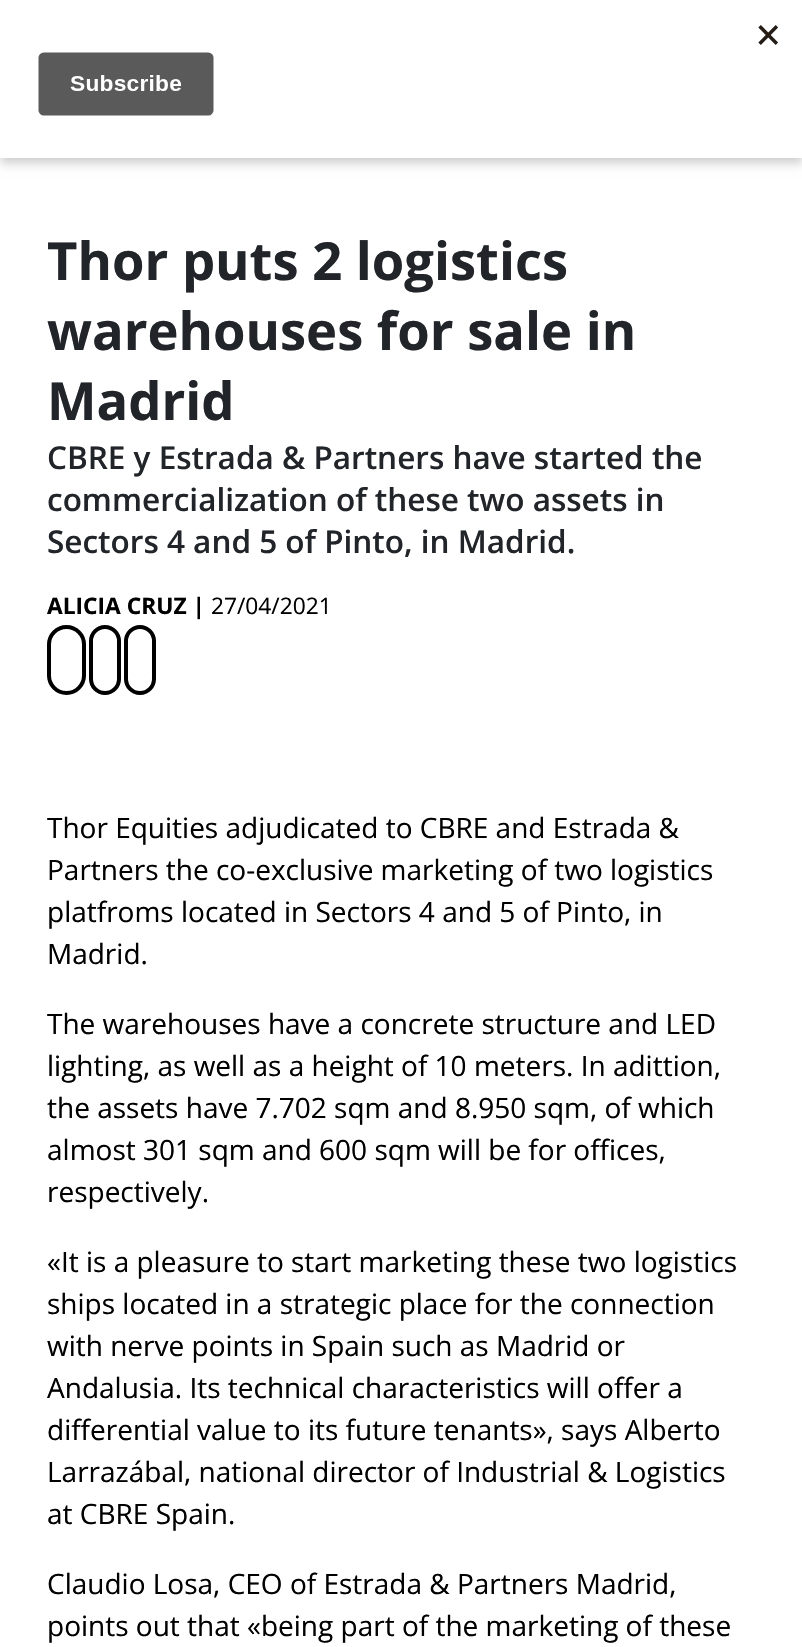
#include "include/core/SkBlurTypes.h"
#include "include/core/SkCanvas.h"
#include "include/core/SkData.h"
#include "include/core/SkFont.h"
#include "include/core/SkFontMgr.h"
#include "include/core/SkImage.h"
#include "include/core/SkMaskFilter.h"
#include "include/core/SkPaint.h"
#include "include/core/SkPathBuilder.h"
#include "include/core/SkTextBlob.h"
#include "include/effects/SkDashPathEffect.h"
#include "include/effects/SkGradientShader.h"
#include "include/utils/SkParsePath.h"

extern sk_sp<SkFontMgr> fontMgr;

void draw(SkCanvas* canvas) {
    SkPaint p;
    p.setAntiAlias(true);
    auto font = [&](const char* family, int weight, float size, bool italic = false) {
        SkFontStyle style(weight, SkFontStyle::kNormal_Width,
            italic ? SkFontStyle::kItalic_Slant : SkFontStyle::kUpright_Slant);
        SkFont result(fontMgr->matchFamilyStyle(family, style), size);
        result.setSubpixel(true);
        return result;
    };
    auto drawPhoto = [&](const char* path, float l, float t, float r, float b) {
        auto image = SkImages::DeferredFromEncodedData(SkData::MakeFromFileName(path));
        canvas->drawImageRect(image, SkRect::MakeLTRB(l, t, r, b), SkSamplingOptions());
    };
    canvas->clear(0xFFFFFFFF);
    p.setColor(0x33000000);
    p.setMaskFilter(SkMaskFilter::MakeBlur(kNormal_SkBlurStyle, 5));
    canvas->drawRect(SkRect::MakeLTRB(0, 5, 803, 163), p);
    p.setMaskFilter(nullptr);
    p.setColor(0xFFFFFFFF);
    canvas->drawRect(SkRect::MakeLTRB(0, 0, 802, 158), p);
    drawPhoto("media/1.png", 38, 25, 778, 116);
    auto font1 = font("Open Sans", 700, 52.5f);
    p.setColor(0xFF212529);
    {
        const struct { const char* s; float x, y; } items[] = {
            {"Thor puts 2 logistics", 47, 280},
            {"warehouses for sale in", 47, 350},
            {"Madrid", 47, 420},
        };
        for (auto [s, x, y] : items) {
            canvas->drawString(s, x, y, font1, p);
        }
    }
    auto font2 = font("Open Sans", 600, 31.5f);
    {
        const struct { const char* s; float x, y; } items[] = {
            {"CBRE y Estrada & Partners have started the", 47, 469},
            {"commercialization of these two assets in", 47, 511},
            {"Sectors 4 and 5 of Pinto, in Madrid.", 47, 553},
        };
        for (auto [s, x, y] : items) {
            canvas->drawString(s, x, y, font2, p);
        }
    }
    auto font3 = font("Open Sans", 700, 22.75f);
    p.setColor(0xFF000000);
    canvas->drawString("ALICIA CRUZ |", 47, 614, font3, p);
    auto font4 = font("Open Sans", 400, 22.75f);
    canvas->drawString("27/04/2021", 211, 614, font4, p);
    p.setStyle(SkPaint::kStroke_Style);
    p.setStrokeWidth(4);
    canvas->drawRoundRect(SkRect::MakeLTRB(49, 627, 84, 693), 17.5f, 17.5f, p);
    canvas->drawRoundRect(SkRect::MakeLTRB(91, 627, 119, 693), 14, 14, p);
    canvas->drawRoundRect(SkRect::MakeLTRB(126, 627, 154, 693), 14, 14, p);
    auto font5 = font("Open Sans", 400, 28);
    p.setStyle(SkPaint::kFill_Style);
    {
        const struct { const char* s; float x, y; } items[] = {
            {"Thor Equities adjudicated to CBRE and Estrada &", 47, 838},
            {"Partners the co-exclusive marketing of two logistics", 47, 880},
            {"platfroms located in Sectors 4 and 5 of Pinto, in", 47, 922},
            {"Madrid.", 47, 964},
            {"The warehouses have a concrete structure and LED", 47, 1034},
            {"lighting, as well as a height of 10 meters. In adittion,", 47, 1076},
            {"the assets have 7.702 sqm and 8.950 sqm, of which", 47, 1118},
            {"almost 301 sqm and 600 sqm will be for offices,", 47, 1160},
            {"respectively.", 47, 1202},
            {"«It is a pleasure to start marketing these two logistics", 47, 1272},
            {"ships located in a strategic place for the connection", 47, 1314},
            {"with nerve points in Spain such as Madrid or", 47, 1356},
            {"Andalusia. Its technical characteristics will offer a", 47, 1398},
            {"differential value to its future tenants», says Alberto", 47, 1440},
            {"Larrazábal, national director of Industrial & Logistics", 47, 1482},
            {"at CBRE Spain.", 47, 1524},
            {"Claudio Losa, CEO of Estrada & Partners Madrid,", 47, 1594},
            {"points out that «being part of the marketing of these", 47, 1636},
        };
        for (auto [s, x, y] : items) {
            canvas->drawString(s, x, y, font5, p);
        }
    }
}
